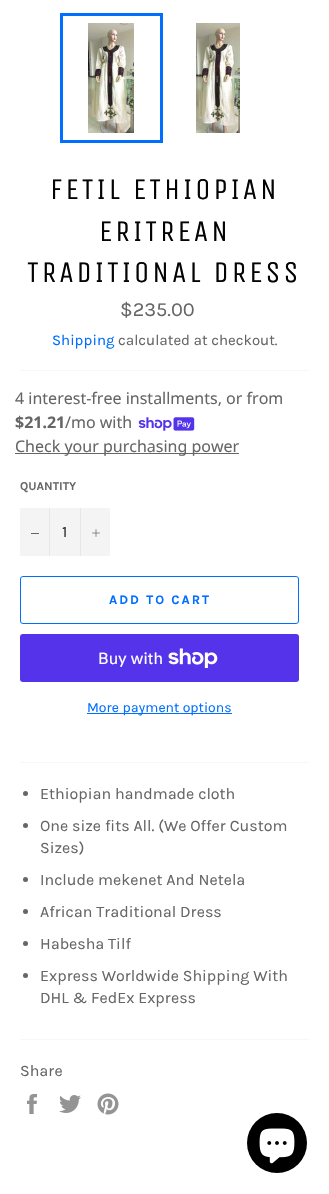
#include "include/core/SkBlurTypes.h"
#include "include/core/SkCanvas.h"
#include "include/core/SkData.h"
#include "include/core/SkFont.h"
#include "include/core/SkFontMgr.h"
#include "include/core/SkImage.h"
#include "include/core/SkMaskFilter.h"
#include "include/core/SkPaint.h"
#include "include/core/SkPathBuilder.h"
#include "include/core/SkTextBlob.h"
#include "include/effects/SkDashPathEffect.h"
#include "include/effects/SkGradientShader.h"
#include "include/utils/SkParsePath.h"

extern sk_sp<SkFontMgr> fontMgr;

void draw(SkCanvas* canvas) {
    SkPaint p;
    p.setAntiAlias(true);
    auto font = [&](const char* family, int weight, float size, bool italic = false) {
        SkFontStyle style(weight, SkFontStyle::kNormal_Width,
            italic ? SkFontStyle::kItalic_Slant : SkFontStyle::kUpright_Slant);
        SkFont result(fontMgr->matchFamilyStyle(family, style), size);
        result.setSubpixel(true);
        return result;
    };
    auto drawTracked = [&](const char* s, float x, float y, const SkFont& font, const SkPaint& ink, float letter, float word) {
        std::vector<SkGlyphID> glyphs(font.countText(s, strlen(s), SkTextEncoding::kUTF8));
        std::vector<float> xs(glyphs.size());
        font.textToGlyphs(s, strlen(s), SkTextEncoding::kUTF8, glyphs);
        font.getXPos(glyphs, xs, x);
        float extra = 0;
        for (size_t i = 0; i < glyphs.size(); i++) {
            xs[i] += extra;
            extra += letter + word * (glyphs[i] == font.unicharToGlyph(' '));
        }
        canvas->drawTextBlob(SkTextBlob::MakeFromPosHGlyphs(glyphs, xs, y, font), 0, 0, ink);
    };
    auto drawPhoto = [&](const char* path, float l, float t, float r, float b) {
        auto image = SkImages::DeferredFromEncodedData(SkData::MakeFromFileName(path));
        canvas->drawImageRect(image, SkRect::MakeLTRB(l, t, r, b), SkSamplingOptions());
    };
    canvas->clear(0xFFFFFFFF);
    drawPhoto("media/1.png", 88, 23, 134, 133);
    p.setStyle(SkPaint::kStroke_Style);
    p.setStrokeWidth(3);
    p.setColor(0xFF006EFF);
    canvas->drawRect(SkRect::MakeLTRB(61.5f, 14.5f, 161.5f, 141.5f), p);
    drawPhoto("media/2.png", 196, 23, 240, 133);
    auto font1 = font("Unica One", 400, 30);
    p.setStyle(SkPaint::kFill_Style);
    p.setColor(0xFF030303);
    {
        const struct { const char* s; float x, y; } items[] = {
            {"FETIL ETHIOPIAN", 50, 199},
            {"ERITREAN", 99, 241},
            {"TRADITIONAL DRESS", 27, 282},
        };
        for (auto [s, x, y] : items) {
            drawTracked(s, x, y, font1, p, 3, 0);
        }
    }
    auto font2 = font("Karla", 400, 20);
    p.setColor(0xFF666666);
    canvas->drawString("$235.00", 120, 316, font2, p);
    auto font3 = font("Karla", 400, 15);
    p.setColor(0xFF006EFF);
    canvas->drawString("Shipping", 52, 345, font3, p);
    p.setColor(0xFF666666);
    canvas->drawString("calculated at checkout.", 118, 345, font3, p);
    p.setColor(0xFFF7F7F7);
    canvas->drawRect(SkRect::MakeLTRB(20, 370, 309, 371), p);
    auto font4 = font("Noto Sans", 400, 16);
    p.setColor(0xFF666666);
    canvas->drawString("4 interest-free installments, or from", 15, 404, font4, p);
    auto font5 = font("Noto Sans", 700, 16);
    canvas->drawString("$21.21", 15, 428, font5, p);
    canvas->drawString("/mo with", 65, 428, font4, p);
    drawPhoto("media/3.png", 138, 417, 195, 431);
    canvas->drawRect(SkRect::MakeLTRB(15, 453, 239, 454), p);
    canvas->drawString("Check your purchasing power", 15, 452, font4, p);
    auto font6 = font("Karla", 700, 12);
    canvas->drawString("QUANTITY", 20, 490, font6, p);
    {
        const struct { float l, t, r, b; SkColor color; } items[] = {
            {20, 508, 110, 556, 0xFFF4F4F4},
            {49, 508, 50, 556, 0xFFE7E7E7},
            {31, 533, 39, 534, 0xFF666666},
        };
        for (auto [l, t, r, b, color] : items) {
            p.setColor(color);
            canvas->drawRect(SkRect::MakeLTRB(l, t, r, b), p);
        }
    }
    auto font7 = font("Karla", 400, 16);
    p.setColor(0xFF333333);
    canvas->drawString("1", 62, 537, font7, p);
    p.setColor(0xFFE7E7E7);
    canvas->drawRect(SkRect::MakeLTRB(80, 508, 81, 556), p);
    drawPhoto("media/4.png", 92, 529, 100, 537);
    p.setStyle(SkPaint::kStroke_Style);
    p.setStrokeWidth(1);
    p.setColor(0xFF006EFF);
    canvas->drawRoundRect(SkRect::MakeLTRB(20.5f, 576.5f, 298.5f, 623.5f), 2.5f, 2.5f, p);
    auto font8 = font("Karla", 700, 13);
    p.setStyle(SkPaint::kFill_Style);
    drawTracked("ADD TO CART", 109, 604, font8, p, 2, 0);
    p.setColor(0xFF5433EB);
    canvas->drawRoundRect(SkRect::MakeLTRB(20, 634, 299, 682), 3, 3, p);
    auto font9 = font("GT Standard", 400, 16);
    p.setColor(0xFFFFFFFF);
    canvas->drawString("Buy with", 98, 664, font9, p);
    drawPhoto("media/5.png", 168, 648, 218, 668);
    p.setColor(0xFF006EFF);
    canvas->drawRect(SkRect::MakeLTRB(87, 713, 232, 714), p);
    auto font10 = font("Karla", 400, 14);
    canvas->drawString("More payment options", 87, 712, font10, p);
    p.setColor(0xFFF7F7F7);
    canvas->drawRect(SkRect::MakeLTRB(20, 762, 309, 763), p);
    p.setColor(0xFF666666);
    canvas->drawCircle(25.5f, 793.5f, 2.5f, p);
    canvas->drawString("Ethiopian handmade cloth", 40, 799, font7, p);
    canvas->drawCircle(25.5f, 825.5f, 2.5f, p);
    canvas->drawString("One size fits All. (We Offer Custom", 40, 831, font7, p);
    canvas->drawString("Sizes)", 40, 853, font7, p);
    canvas->drawCircle(25.5f, 879.5f, 2.5f, p);
    canvas->drawString("Include mekenet And Netela", 40, 885, font7, p);
    canvas->drawCircle(25.5f, 911.5f, 2.5f, p);
    canvas->drawString("African Traditional Dress", 40, 917, font7, p);
    canvas->drawCircle(25.5f, 943.5f, 2.5f, p);
    canvas->drawString("Habesha Tilf", 40, 949, font7, p);
    canvas->drawCircle(25.5f, 975.5f, 2.5f, p);
    canvas->drawString("Express Worldwide Shipping With", 40, 981, font7, p);
    canvas->drawString("DHL & FedEx Express", 40, 1003, font7, p);
    p.setColor(0xFFF7F7F7);
    canvas->drawRect(SkRect::MakeLTRB(20, 1039, 309, 1040), p);
    p.setColor(0xFF666666);
    canvas->drawString("Share", 20, 1076, font7, p);
    drawPhoto("media/6.png", 27, 1094, 37, 1114);
    drawPhoto("media/7.png", 59, 1095, 81, 1113);
    drawPhoto("media/8.png", 97, 1093, 119, 1115);
    p.setColor(0xFF000000);
    canvas->drawCircle(277, 1143, 30, p);
    drawPhoto("media/9.png", 259, 1128, 295, 1164);
}
